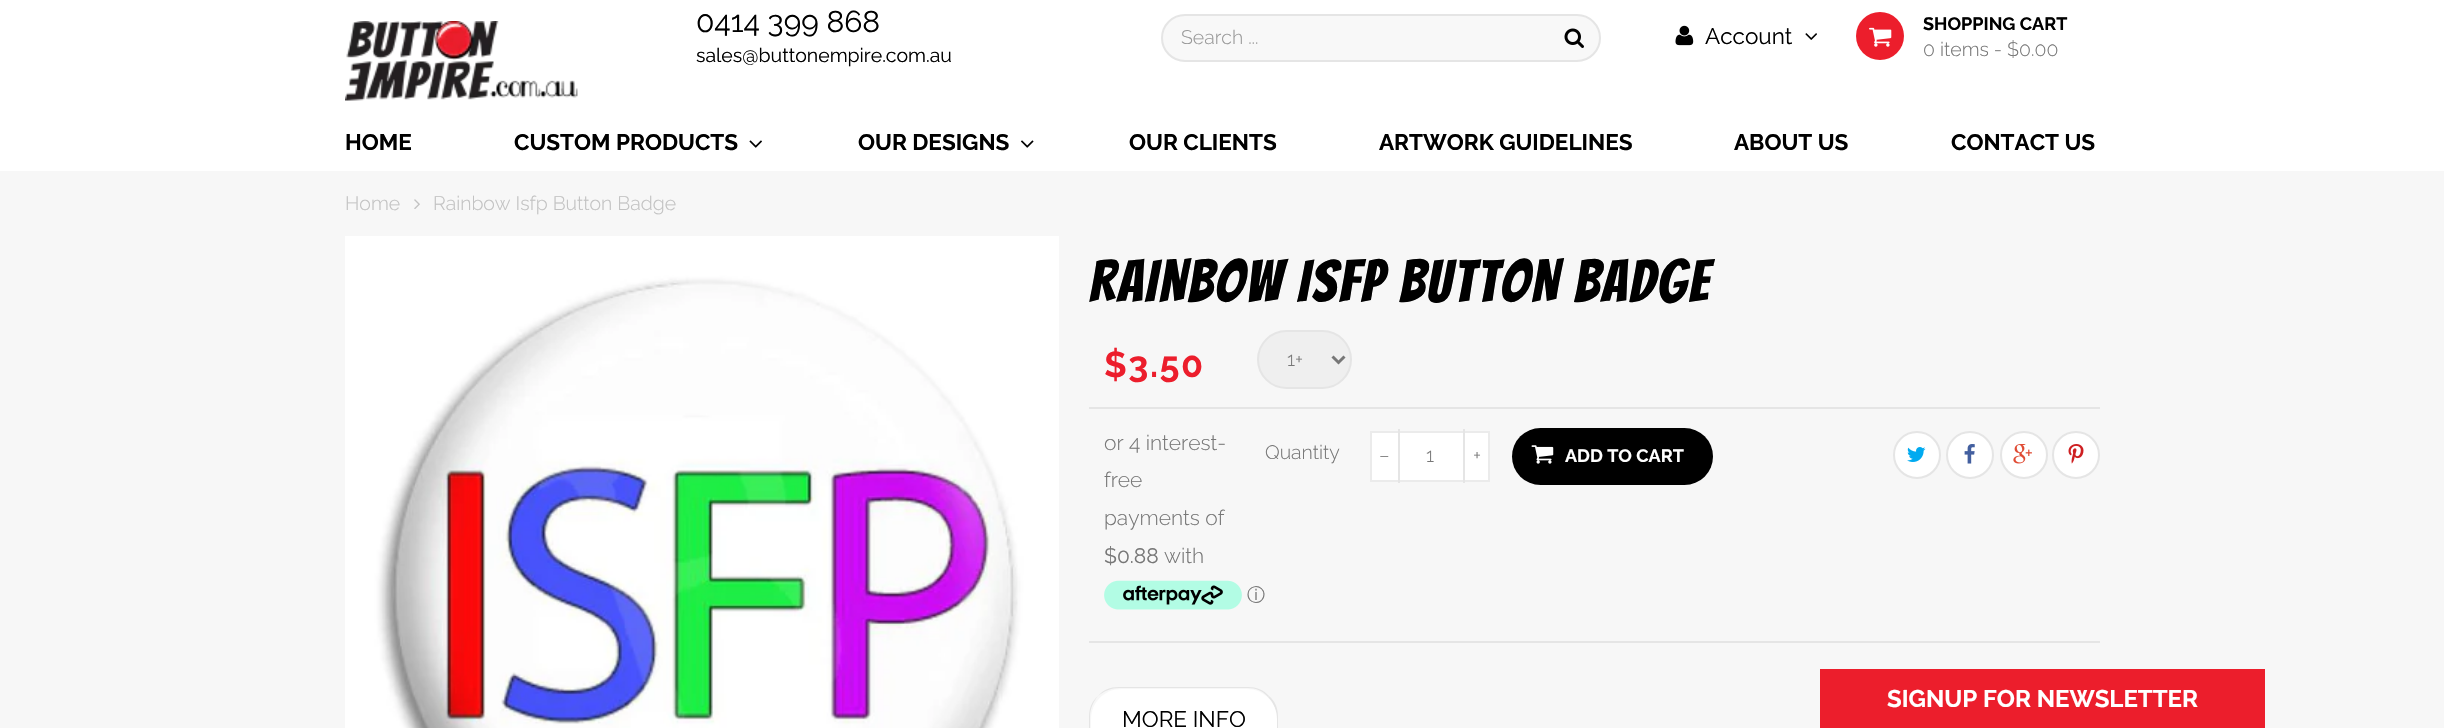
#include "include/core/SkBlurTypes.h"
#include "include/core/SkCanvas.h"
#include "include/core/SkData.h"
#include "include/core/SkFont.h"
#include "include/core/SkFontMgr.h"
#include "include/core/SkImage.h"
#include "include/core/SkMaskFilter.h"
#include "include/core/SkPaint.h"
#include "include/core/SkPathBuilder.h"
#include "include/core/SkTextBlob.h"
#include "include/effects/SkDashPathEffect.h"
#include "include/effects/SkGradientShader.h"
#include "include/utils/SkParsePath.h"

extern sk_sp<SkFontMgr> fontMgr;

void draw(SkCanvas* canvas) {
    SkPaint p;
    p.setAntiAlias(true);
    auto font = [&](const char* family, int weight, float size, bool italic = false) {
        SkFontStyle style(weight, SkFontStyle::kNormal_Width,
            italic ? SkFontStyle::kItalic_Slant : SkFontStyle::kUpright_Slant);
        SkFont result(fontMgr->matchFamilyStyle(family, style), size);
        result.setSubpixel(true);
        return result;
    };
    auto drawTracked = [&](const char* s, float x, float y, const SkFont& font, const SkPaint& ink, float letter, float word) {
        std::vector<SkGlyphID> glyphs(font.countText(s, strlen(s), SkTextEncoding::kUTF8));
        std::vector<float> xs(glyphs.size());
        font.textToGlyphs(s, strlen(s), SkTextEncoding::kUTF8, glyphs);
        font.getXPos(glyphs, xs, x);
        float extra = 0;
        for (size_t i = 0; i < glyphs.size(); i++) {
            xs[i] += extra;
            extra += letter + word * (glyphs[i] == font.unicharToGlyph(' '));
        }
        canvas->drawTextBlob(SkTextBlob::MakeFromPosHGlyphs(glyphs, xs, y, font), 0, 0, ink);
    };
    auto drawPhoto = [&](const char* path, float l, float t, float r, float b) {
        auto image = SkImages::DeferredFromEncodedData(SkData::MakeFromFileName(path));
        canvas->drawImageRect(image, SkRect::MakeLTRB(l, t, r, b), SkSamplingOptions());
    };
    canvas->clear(0xFFF7F7F7);
    p.setColor(0xFFFFFFFF);
    canvas->drawRect(SkRect::MakeLTRB(0, 0, 2444, 171), p);
    auto font1 = font("Raleway", 400, 30);
    p.setColor(0xFF000000);
    canvas->drawString("0414 399 868", 696, 32, font1, p);
    auto font2 = font("Raleway", 400, 19.5f);
    canvas->drawString("sales@buttonempire.com.au", 696, 62, font2, p);
    p.setColor(0xFFF8F8F8);
    canvas->drawRoundRect(SkRect::MakeLTRB(1162, 15, 1600, 61), 23, 23, p);
    p.setStyle(SkPaint::kStroke_Style);
    p.setStrokeWidth(2);
    p.setColor(0xFFE5E5E5);
    canvas->drawRoundRect(SkRect::MakeLTRB(1162, 15, 1600, 61), 23, 23, p);
    auto font3 = font("Raleway", 300, 19.5f);
    p.setStyle(SkPaint::kFill_Style);
    p.setColor(0xFF999999);
    canvas->drawString("Search ...", 1181, 44, font3, p);
    drawPhoto("media/1.png", 1564, 28, 1584, 48);
    drawPhoto("media/2.png", 1675, 25, 1694, 46);
    auto font4 = font("Raleway", 400, 22.5f);
    p.setColor(0xFF000000);
    canvas->drawString("Account", 1705, 44, font4, p);
    drawPhoto("media/3.png", 1805, 33, 1817, 40);
    p.setColor(0xFFEC1E2C);
    canvas->drawCircle(1880, 36, 24, p);
    drawPhoto("media/4.png", 1869, 27, 1892, 47);
    auto font5 = font("Raleway", 700, 18);
    p.setColor(0xFF000000);
    canvas->drawString("SHOPPING CART", 1923, 30, font5, p);
    p.setColor(0xFF777777);
    canvas->drawString("0", 1923, 56, font3, p);
    canvas->drawString("items - $0.00", 1940, 56, font3, p);
    auto font6 = font("Raleway", 700, 22.5f);
    p.setColor(0xFF000000);
    canvas->drawString("HOME", 345, 150, font6, p);
    canvas->drawString("CUSTOM PRODUCTS", 514, 150, font6, p);
    drawPhoto("media/5.png", 749, 140, 762, 148);
    canvas->drawString("OUR DESIGNS", 858, 150, font6, p);
    drawPhoto("media/6.png", 1021, 140, 1034, 148);
    {
        const struct { const char* s; float x, y; } items[] = {
            {"OUR CLIENTS", 1129, 150},
            {"ARTWORK GUIDELINES", 1379, 150},
            {"ABOUT US", 1734, 150},
            {"CONTACT US", 1951, 150},
        };
        for (auto [s, x, y] : items) {
            canvas->drawString(s, x, y, font6, p);
        }
    }
    drawPhoto("media/7.png", 345, 21, 578, 101);
    p.setColor(0xFFC2C2C2);
    canvas->drawString("Home", 345, 210, font3, p);
    drawPhoto("media/8.png", 414, 199, 420, 209);
    canvas->drawString("Rainbow Isfp Button Badge", 433, 210, font3, p);
    drawPhoto("media/9.png", 345, 236, 1059, 728);
    auto font7 = font("Bangers", 400, 58.5f);
    p.setColor(0xFF000000);
    drawTracked("RAINBOW ISFP BUTTON BADGE", 1089, 302, font7, p, 2.3f, 0);
    auto font8 = font("Raleway", 700, 36);
    p.setColor(0xFFEC1E2C);
    drawTracked("$3.50", 1104, 377, font8, p, 1.5f, 0);
    auto font9 = font("Raleway", 300, 21);
    p.setColor(0xFF777777);
    {
        const struct { const char* s; float x, y; } items[] = {
            {"or 4 interest-", 1104, 450},
            {"free", 1104, 487},
            {"payments of", 1104, 525},
        };
        for (auto [s, x, y] : items) {
            canvas->drawString(s, x, y, font9, p);
        }
    }
    auto font10 = font("Raleway", 400, 21);
    canvas->drawString("$0.88", 1104, 563, font10, p);
    canvas->drawString("with", 1164, 563, font9, p);
    drawPhoto("media/10.png", 1104, 580, 1242, 610);
    auto font11 = font("WenQuanYi Zen Hei", 500, 18);
    canvas->drawString("ⓘ", 1247, 601, font11, p);
    p.setColor(0xFFEFEFEF);
    canvas->drawRoundRect(SkRect::MakeLTRB(1258, 331, 1351, 388), 28.5f, 28.5f, p);
    p.setStyle(SkPaint::kStroke_Style);
    p.setColor(0xFFE5E5E5);
    canvas->drawRoundRect(SkRect::MakeLTRB(1258, 331, 1351, 388), 28.5f, 28.5f, p);
    p.setStrokeWidth(3);
    p.setColor(0xFF777777);
    canvas->drawPath(SkPathBuilder().moveTo(1332.5f, 356.5f).lineTo(1338.5f, 362.5f).lineTo(1344.5f, 356.5f).detach(), p);
    p.setStyle(SkPaint::kFill_Style);
    canvas->drawString("1+", 1287, 366, font3, p);
    p.setColor(0xFFE5E5E5);
    canvas->drawRect(SkRect::MakeLTRB(1089, 407, 2100, 409), p);
    p.setColor(0xFF777777);
    canvas->drawString("Quantity", 1265, 459, font3, p);
    p.setColor(0xFFFFFFFF);
    canvas->drawRect(SkRect::MakeLTRB(1371, 432, 1489, 481), p);
    p.setStyle(SkPaint::kStroke_Style);
    p.setStrokeWidth(2);
    p.setColor(0xFFEBEBEB);
    canvas->drawRect(SkRect::MakeLTRB(1371, 432, 1489, 481), p);
    p.setStyle(SkPaint::kFill_Style);
    p.setColor(0xFFE5E5E5);
    canvas->drawRect(SkRect::MakeLTRB(1398, 429, 1400, 483), p);
    p.setColor(0xFF777777);
    canvas->drawString("−", 1379, 462, font3, p);
    canvas->drawString("1", 1426, 462, font3, p);
    p.setColor(0xFFE5E5E5);
    canvas->drawRect(SkRect::MakeLTRB(1463, 429, 1465, 483), p);
    p.setColor(0xFF777777);
    canvas->drawString("+", 1473, 462, font3, p);
    p.setColor(0xFF000000);
    canvas->drawRoundRect(SkRect::MakeLTRB(1512, 428, 1713, 485), 28.5f, 28.5f, p);
    drawPhoto("media/11.png", 1531, 445, 1554, 464);
    p.setColor(0xFFFFFFFF);
    canvas->drawString("ADD TO CART", 1565, 462, font5, p);
    canvas->drawCircle(1917, 455, 23, p);
    p.setStyle(SkPaint::kStroke_Style);
    p.setColor(0xFFE5E5E5);
    canvas->drawCircle(1917, 455, 23, p);
    drawPhoto("media/12.png", 1907, 447, 1926, 462);
    p.setStyle(SkPaint::kFill_Style);
    p.setColor(0xFFFFFFFF);
    canvas->drawCircle(1970, 455, 23, p);
    p.setStyle(SkPaint::kStroke_Style);
    p.setColor(0xFFE5E5E5);
    canvas->drawCircle(1970, 455, 23, p);
    drawPhoto("media/13.png", 1964, 444, 1975, 464);
    p.setStyle(SkPaint::kFill_Style);
    p.setColor(0xFFFFFFFF);
    canvas->drawCircle(2024, 455, 23, p);
    p.setStyle(SkPaint::kStroke_Style);
    p.setColor(0xFFE5E5E5);
    canvas->drawCircle(2024, 455, 23, p);
    drawPhoto("media/14.png", 2013, 444, 2032, 464);
    p.setStyle(SkPaint::kFill_Style);
    p.setColor(0xFFFFFFFF);
    canvas->drawCircle(2076, 455, 23, p);
    p.setStyle(SkPaint::kStroke_Style);
    p.setColor(0xFFE5E5E5);
    canvas->drawCircle(2076, 455, 23, p);
    drawPhoto("media/15.png", 2068, 444, 2084, 464);
    p.setStyle(SkPaint::kFill_Style);
    canvas->drawRect(SkRect::MakeLTRB(1089, 641, 2100, 643), p);
    canvas->drawPath(SkPathBuilder().moveTo(1119, 687).cubicTo(1110, 687, 1103, 690, 1098, 696).cubicTo(1104, 691, 1111, 688, 1119, 688).lineTo(1248, 688).cubicTo(1256, 688, 1263, 691, 1268, 697).lineTo(1269, 696).cubicTo(1264, 690, 1256, 687, 1248, 687).close().detach(), p);
    canvas->drawPath(SkPathBuilder().moveTo(1278, 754).lineTo(1278, 717).cubicTo(1278, 708, 1275, 701, 1269, 696).lineTo(1268, 697).cubicTo(1273, 702, 1276, 709, 1276, 717).lineTo(1276, 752).close().detach(), p);
    canvas->drawPath(SkPathBuilder().moveTo(1089, 717).lineTo(1089, 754).lineTo(1090, 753).lineTo(1090, 717).cubicTo(1090, 709, 1093, 702, 1098, 696).cubicTo(1092, 701, 1089, 708, 1089, 717).close().detach(), p);
    p.setColor(0xFFFFFFFF);
    canvas->drawPath(SkPathBuilder().moveTo(1121, 689).lineTo(1247, 689).cubicTo(1263.5f, 689, 1277, 702.5f, 1277, 719).lineTo(1277, 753).lineTo(1091, 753).lineTo(1091, 719).cubicTo(1091, 702.5f, 1104.5f, 689, 1121, 689).close().detach(), p);
    p.setColor(0xFF000000);
    canvas->drawString("MORE INFO", 1122, 727, font4, p);
    p.setColor(0xFFEC1E2C);
    canvas->drawRect(SkRect::MakeLTRB(1820, 669, 2265, 728), p);
    auto font12 = font("Raleway", 700, 24);
    p.setColor(0xFFFFFFFF);
    canvas->drawString("SIGNUP FOR NEWSLETTER", 1887, 707, font12, p);
}
